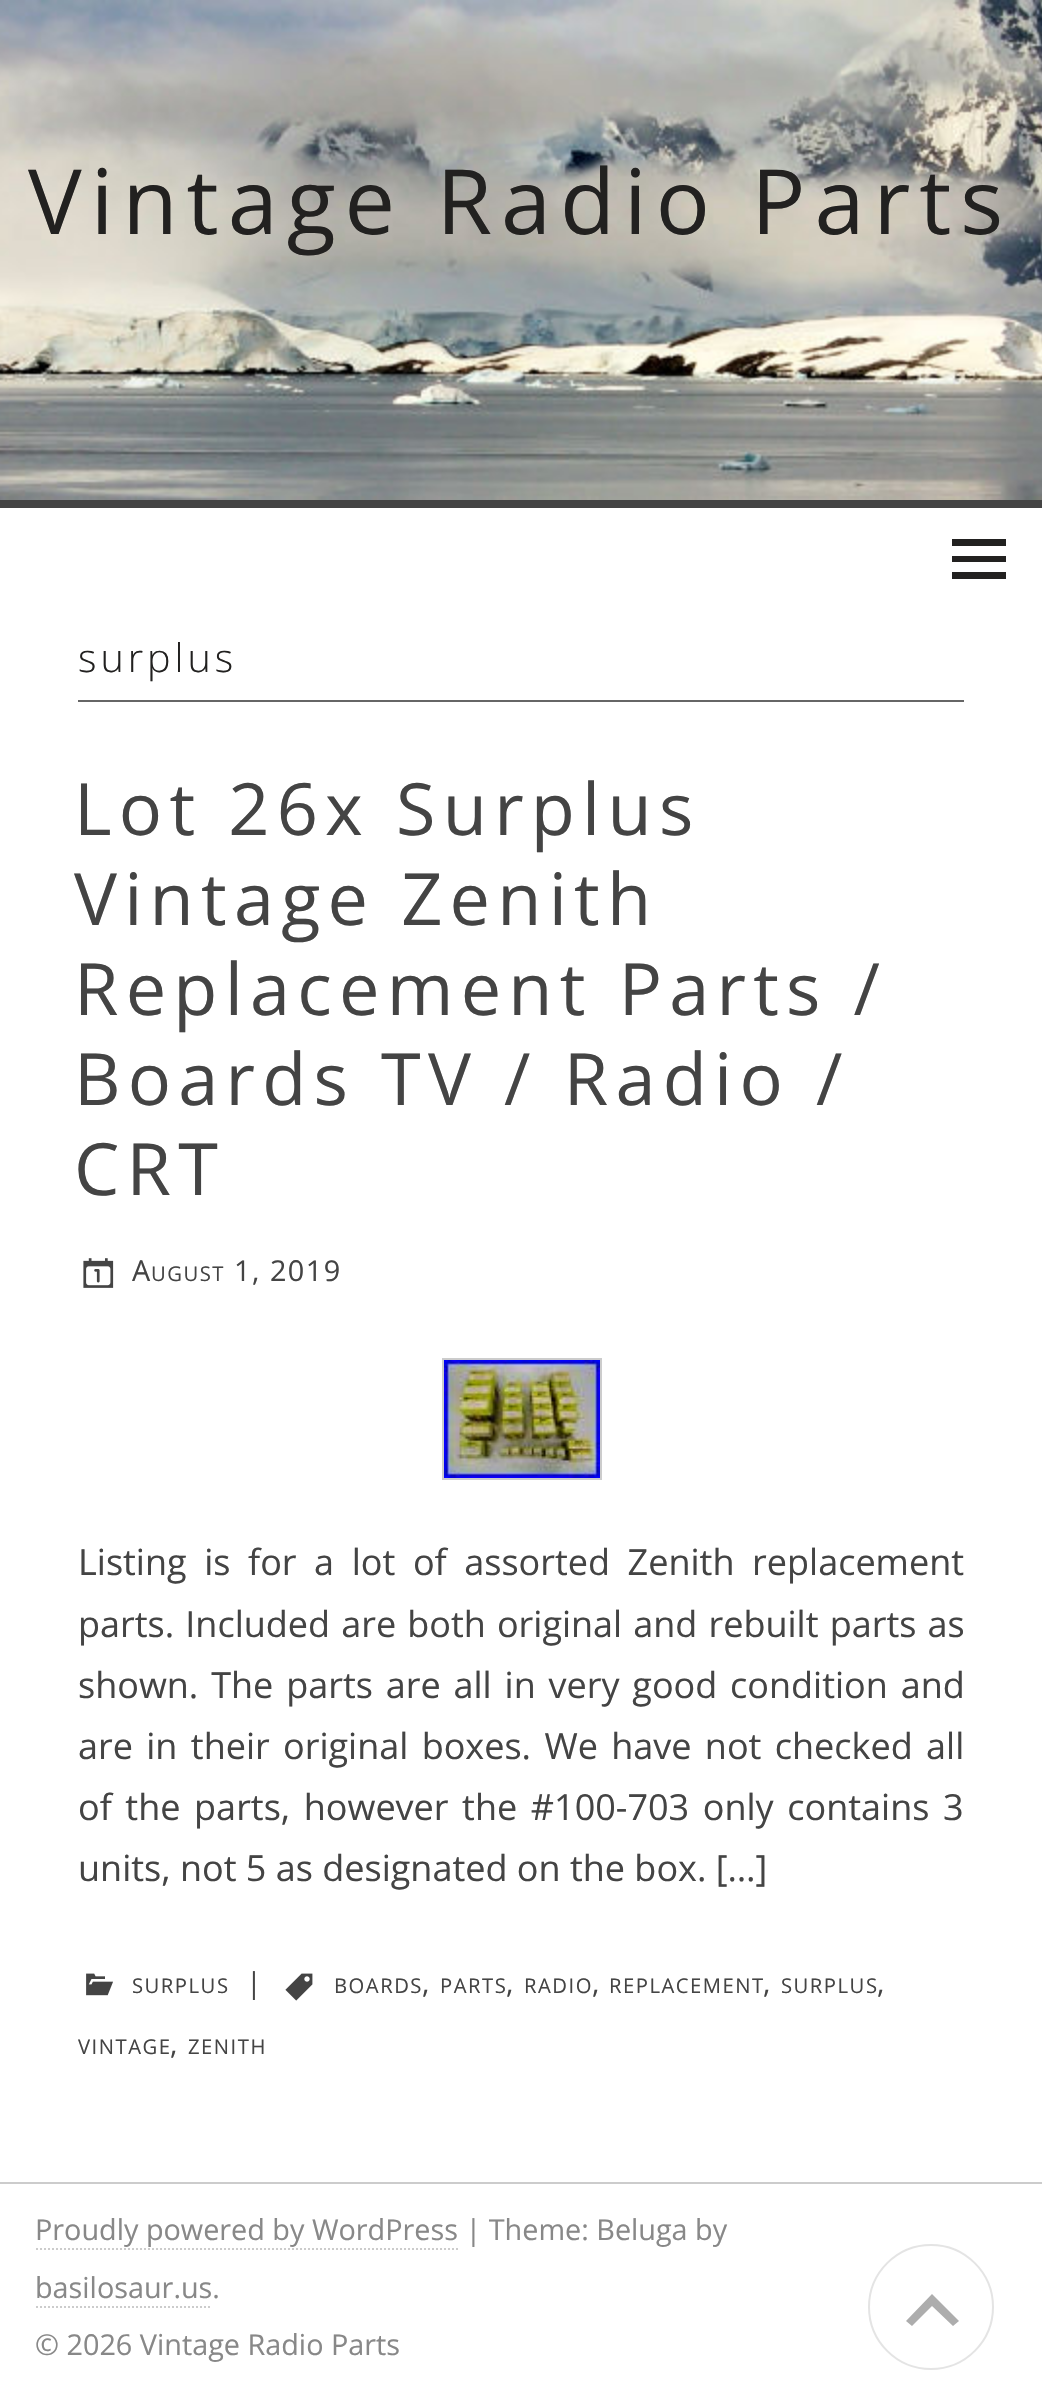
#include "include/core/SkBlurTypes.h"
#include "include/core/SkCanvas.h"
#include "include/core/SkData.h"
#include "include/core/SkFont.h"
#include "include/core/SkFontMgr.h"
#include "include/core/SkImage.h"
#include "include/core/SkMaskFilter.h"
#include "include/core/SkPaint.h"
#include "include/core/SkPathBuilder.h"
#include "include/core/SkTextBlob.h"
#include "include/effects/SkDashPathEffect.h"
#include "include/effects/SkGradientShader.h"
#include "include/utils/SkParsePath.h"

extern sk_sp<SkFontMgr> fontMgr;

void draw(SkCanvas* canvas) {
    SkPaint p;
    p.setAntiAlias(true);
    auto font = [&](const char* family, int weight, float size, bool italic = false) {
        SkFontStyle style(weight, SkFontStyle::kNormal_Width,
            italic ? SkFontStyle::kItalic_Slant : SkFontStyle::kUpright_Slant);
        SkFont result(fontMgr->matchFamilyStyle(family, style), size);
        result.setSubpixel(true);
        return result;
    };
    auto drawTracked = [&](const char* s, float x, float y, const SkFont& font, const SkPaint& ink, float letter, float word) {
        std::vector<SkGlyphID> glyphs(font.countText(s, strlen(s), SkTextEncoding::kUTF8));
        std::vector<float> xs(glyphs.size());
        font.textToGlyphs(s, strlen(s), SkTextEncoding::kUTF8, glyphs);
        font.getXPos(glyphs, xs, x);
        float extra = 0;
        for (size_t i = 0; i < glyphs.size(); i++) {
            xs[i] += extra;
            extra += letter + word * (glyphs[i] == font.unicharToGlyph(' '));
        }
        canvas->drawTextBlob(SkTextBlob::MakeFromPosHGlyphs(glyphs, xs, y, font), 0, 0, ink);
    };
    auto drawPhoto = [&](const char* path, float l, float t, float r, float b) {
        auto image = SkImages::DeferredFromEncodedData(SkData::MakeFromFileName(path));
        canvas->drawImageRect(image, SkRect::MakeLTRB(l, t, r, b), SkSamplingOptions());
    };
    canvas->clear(0xFFFFFFFF);
    drawPhoto("media/1.png", 0, 0, 1042, 500);
    auto font1 = font("Open Sans", 400, 90);
    p.setColor(0xFF222120);
    drawTracked("Vintage Radio Parts", 28, 234, font1, p, 9, 0);
    p.setColor(0xFF444444);
    canvas->drawRect(SkRect::MakeLTRB(0, 500, 1042, 508), p);
    p.setColor(0xFF222120);
    canvas->drawPath(SkPathBuilder().moveTo(952, 579).lineTo(952, 572).lineTo(1006, 572).lineTo(1006, 579).close().moveTo(952, 562).lineTo(952, 556).lineTo(1006, 556).lineTo(1006, 562).close().moveTo(952, 546).lineTo(952, 539).lineTo(1006, 539).lineTo(1006, 546).close().detach(), p);
    p.setColor(0xFF666666);
    canvas->drawRect(SkRect::MakeLTRB(78, 700, 964, 702), p);
    auto font2 = font("Open Sans", 300, 39.5f);
    p.setColor(0xFF222120);
    drawTracked("surplus", 78, 672, font2, p, 4, 0);
    auto font3 = font("Open Sans", 400, 72);
    p.setColor(0xFF444444);
    {
        const struct { const char* s; float x, y; } items[] = {
            {"Lot 26x Surplus", 74, 835},
            {"Vintage Zenith", 74, 925},
            {"Replacement Parts /", 74, 1015},
            {"Boards TV / Radio /", 74, 1105},
            {"CRT", 74, 1195},
        };
        for (auto [s, x, y] : items) {
            drawTracked(s, x, y, font3, p, 7.25f, 0);
        }
    }
    drawPhoto("media/2.png", 83, 1258, 114, 1288);
    auto font4 = font("Open Sans", 400, 28.8f);
    drawTracked("A", 132, 1281, font4, p, 1.5f, 0);
    auto font5 = font("Open Sans", 400, 20.25f);
    drawTracked("UGUST", 151, 1281, font5, p, 1.5f, 0);
    drawTracked("1, 2019", 234, 1281, font4, p, 1.5f, 0);
    p.setStyle(SkPaint::kStroke_Style);
    p.setStrokeWidth(2);
    p.setColor(0xFFCCCCCC);
    canvas->drawRect(SkRect::MakeLTRB(443, 1359, 601, 1479), p);
    drawPhoto("media/3.png", 444, 1360, 600, 1478);
    auto font6 = font("Open Sans", 400, 36);
    p.setStyle(SkPaint::kFill_Style);
    p.setColor(0xFF444444);
    drawTracked("Listing is for a lot of assorted Zenith replacement", 78, 1575, font6, p, 0, 8.25f);
    drawTracked("parts. Included are both original and rebuilt parts as", 78, 1637, font6, p, 0, 1.75f);
    drawTracked("shown. The parts are all in very good condition and", 78, 1698, font6, p, 0, 3.5f);
    drawTracked("are in their original boxes. We have not checked all", 78, 1759, font6, p, 0, 4);
    drawTracked("of the parts, however the #100-703 only contains 3", 78, 1820, font6, p, 0, 4.25f);
    canvas->drawString("units, not 5 as designated on the box. […]", 78, 1881, font6, p);
    drawTracked("|", 246, 1993, font4, p, 1.5f, 0);
    drawPhoto("media/4.png", 285, 1973, 313, 2001);
    drawTracked("BOARDS", 334, 1993, font5, p, 1.5f, 0);
    drawTracked(",", 422, 1993, font4, p, 1.5f, 0);
    drawTracked("PARTS", 440, 1993, font5, p, 1.5f, 0);
    drawTracked(",", 506, 1993, font4, p, 1.5f, 0);
    drawTracked("RADIO", 524, 1993, font5, p, 1.5f, 0);
    drawTracked(",", 592, 1993, font4, p, 1.5f, 0);
    drawTracked("REPLACEMENT", 609, 1993, font5, p, 1.5f, 0);
    drawTracked(",", 763, 1993, font4, p, 1.5f, 0);
    drawTracked("SURPLUS", 781, 1993, font5, p, 1.5f, 0);
    drawTracked(",", 877, 1993, font4, p, 1.5f, 0);
    drawTracked("VINTAGE", 78, 2054, font5, p, 1.5f, 0);
    drawTracked(",", 170, 2054, font4, p, 1.5f, 0);
    drawTracked("ZENITH", 188, 2054, font5, p, 1.5f, 0);
    drawPhoto("media/5.png", 86, 1973, 113, 1996);
    drawTracked("SURPLUS", 132, 1993, font5, p, 1.5f, 0);
    p.setColor(0xFFCCCCCC);
    canvas->drawRect(SkRect::MakeLTRB(0, 2182, 1042, 2184), p);
    p.setColor(0xFF888888);
    canvas->drawString("Proudly powered by WordPress | Theme: Beluga by", 35, 2240, font4, p);
    p.setStyle(SkPaint::kStroke_Style);
    p.setColor(0xFFCCCCCC);
    p.setPathEffect(SkDashPathEffect::Make({{2, 2}}, 0));
    canvas->drawPath(SkPathBuilder().moveTo(36, 2249).lineTo(458, 2249).detach(), p);
    p.setPathEffect(nullptr);
    p.setStyle(SkPaint::kFill_Style);
    p.setColor(0xFF888888);
    canvas->drawString("basilosaur.us.", 35, 2298, font4, p);
    p.setStyle(SkPaint::kStroke_Style);
    p.setColor(0xFFCCCCCC);
    p.setPathEffect(SkDashPathEffect::Make({{2, 2}}, 0));
    canvas->drawPath(SkPathBuilder().moveTo(36, 2307).lineTo(212, 2307).detach(), p);
    p.setPathEffect(nullptr);
    p.setStyle(SkPaint::kFill_Style);
    p.setColor(0xFF888888);
    canvas->drawString("© 2026 Vintage Radio Parts", 35, 2355, font4, p);
    p.setStyle(SkPaint::kStroke_Style);
    p.setColor(0xFFE4E4E4);
    canvas->drawCircle(931, 2307, 62, p);
    p.setStyle(SkPaint::kFill_Style);
    p.setColor(0xFFADADAD);
    canvas->drawPath(SkPathBuilder().moveTo(906, 2321).lineTo(932, 2294).lineTo(959, 2321).lineTo(953, 2326).lineTo(932, 2306).lineTo(912, 2326).close().detach(), p);
}
